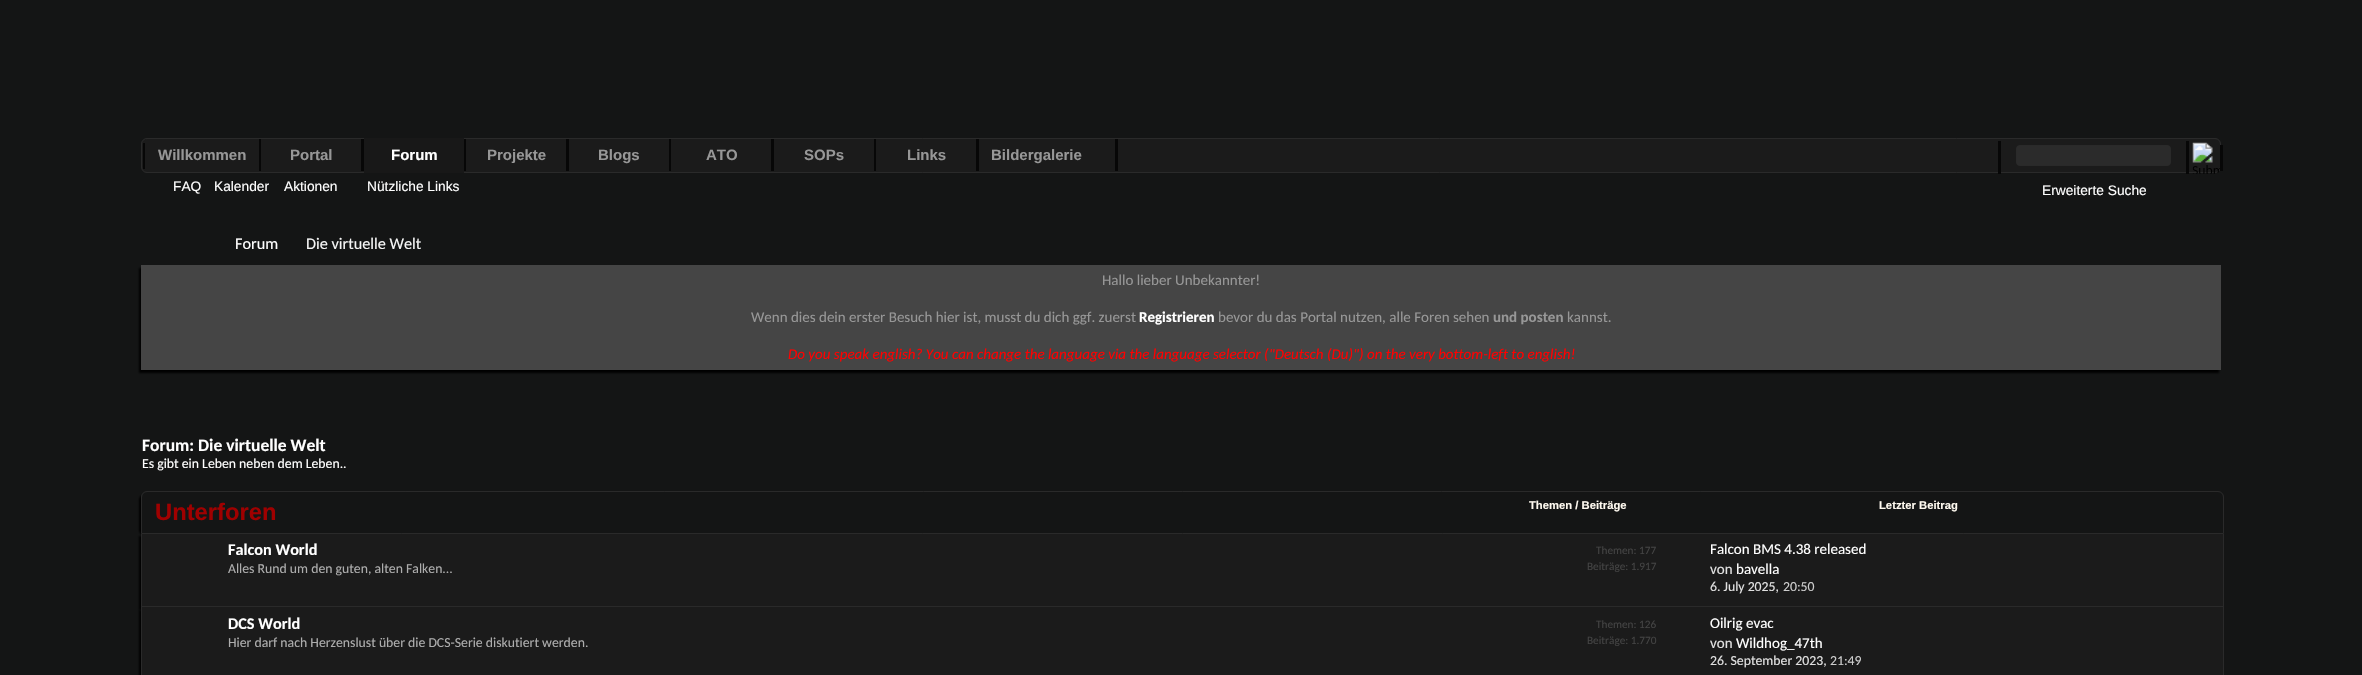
#include "include/core/SkBlurTypes.h"
#include "include/core/SkCanvas.h"
#include "include/core/SkData.h"
#include "include/core/SkFont.h"
#include "include/core/SkFontMgr.h"
#include "include/core/SkImage.h"
#include "include/core/SkMaskFilter.h"
#include "include/core/SkPaint.h"
#include "include/core/SkPathBuilder.h"
#include "include/core/SkTextBlob.h"
#include "include/effects/SkDashPathEffect.h"
#include "include/effects/SkGradientShader.h"
#include "include/utils/SkParsePath.h"

extern sk_sp<SkFontMgr> fontMgr;

void draw(SkCanvas* canvas) {
    SkPaint p;
    p.setAntiAlias(true);
    auto font = [&](const char* family, int weight, float size, bool italic = false) {
        SkFontStyle style(weight, SkFontStyle::kNormal_Width,
            italic ? SkFontStyle::kItalic_Slant : SkFontStyle::kUpright_Slant);
        SkFont result(fontMgr->matchFamilyStyle(family, style), size);
        result.setSubpixel(true);
        return result;
    };
    auto drawPhoto = [&](const char* path, float l, float t, float r, float b) {
        auto image = SkImages::DeferredFromEncodedData(SkData::MakeFromFileName(path));
        canvas->drawImageRect(image, SkRect::MakeLTRB(l, t, r, b), SkSamplingOptions());
    };
    canvas->clear(0xFF141515);
    p.setColor(0xFF1B1B1B);
    canvas->drawRoundRect(SkRect::MakeLTRB(141.5f, 138.5f, 2220.5f, 172.5f), 5.5f, 5.5f, p);
    p.setStyle(SkPaint::kStroke_Style);
    p.setStrokeWidth(1);
    p.setColor(0xFF2A2A2A);
    canvas->drawRoundRect(SkRect::MakeLTRB(141.5f, 138.5f, 2220.5f, 172.5f), 5.5f, 5.5f, p);
    p.setStyle(SkPaint::kFill_Style);
    {
        const struct { float l, t, r, b; SkColor color; } items[] = {
            {259, 139, 261, 171, 0xFF070707},
            {143, 143, 145, 169, 0xFF070707},
            {145, 139, 146, 140, 0xFF1B1B1B},
        };
        for (auto [l, t, r, b, color] : items) {
            p.setColor(color);
            canvas->drawRect(SkRect::MakeLTRB(l, t, r, b), p);
        }
    }
    auto font1 = font("Liberation Sans", 700, 15);
    p.setColor(0xFF979797);
    canvas->drawString("Willkommen", 158, 160, font1, p);
    p.setColor(0xFF070707);
    canvas->drawRect(SkRect::MakeLTRB(361, 139, 364, 171), p);
    p.setColor(0xFF979797);
    canvas->drawString("Portal", 290, 160, font1, p);
    p.setColor(0xFF070707);
    canvas->drawRect(SkRect::MakeLTRB(464, 139, 466, 171), p);
    p.setColor(0xFF181818);
    canvas->drawRect(SkRect::MakeLTRB(364, 138, 464, 173), p);
    p.setColor(0xFFFFFFFF);
    canvas->drawString("Forum", 391, 160, font1, p);
    p.setColor(0xFF070707);
    canvas->drawRect(SkRect::MakeLTRB(566, 139, 569, 171), p);
    p.setColor(0xFF979797);
    canvas->drawString("Projekte", 487, 160, font1, p);
    p.setColor(0xFF070707);
    canvas->drawRect(SkRect::MakeLTRB(669, 139, 671, 171), p);
    p.setColor(0xFF979797);
    canvas->drawString("Blogs", 598, 160, font1, p);
    p.setColor(0xFF070707);
    canvas->drawRect(SkRect::MakeLTRB(771, 139, 774, 171), p);
    p.setColor(0xFF979797);
    canvas->drawString("ATO", 706, 160, font1, p);
    p.setColor(0xFF070707);
    canvas->drawRect(SkRect::MakeLTRB(874, 139, 876, 171), p);
    p.setColor(0xFF979797);
    canvas->drawString("SOPs", 804, 160, font1, p);
    p.setColor(0xFF070707);
    canvas->drawRect(SkRect::MakeLTRB(976, 139, 979, 171), p);
    p.setColor(0xFF979797);
    canvas->drawString("Links", 907, 160, font1, p);
    p.setColor(0xFF070707);
    canvas->drawRect(SkRect::MakeLTRB(1115, 139, 1118, 171), p);
    p.setColor(0xFF979797);
    canvas->drawString("Bildergalerie", 991, 160, font1, p);
    auto font2 = font("Liberation Sans", 400, 13.75f);
    p.setColor(0xFFFFFFFF);
    {
        const struct { const char* s; float x, y; } items[] = {
            {"FAQ", 173, 191},
            {"Kalender", 214, 191},
            {"Aktionen", 284, 191},
            {"Nützliche Links", 367, 191},
        };
        for (auto [s, x, y] : items) {
            canvas->drawString(s, x, y, font2, p);
        }
    }
    p.setColor(0xFF070707);
    canvas->drawRect(SkRect::MakeLTRB(1998, 141, 2001, 174), p);
    p.setColor(0xFF2B2B2B);
    canvas->drawRoundRect(SkRect::MakeLTRB(2016.5f, 145.5f, 2170.5f, 165.5f), 3.5f, 3.5f, p);
    p.setStyle(SkPaint::kStroke_Style);
    p.setColor(0xFF2A2A2A);
    canvas->drawRoundRect(SkRect::MakeLTRB(2016.5f, 145.5f, 2170.5f, 165.5f), 3.5f, 3.5f, p);
    p.setStyle(SkPaint::kFill_Style);
    p.setColor(0xFF070707);
    canvas->drawRect(SkRect::MakeLTRB(2220, 145, 2223, 171), p);
    canvas->drawRect(SkRect::MakeLTRB(2186, 141, 2189, 174), p);
    drawPhoto("media/1.png", 2192, 142, 2220, 174);
    p.setColor(0xFFFFFFFF);
    canvas->drawString("Erweiterte Suche", 2042, 195, font2, p);
    auto font3 = font("Carlito", 400, 16.25f);
    canvas->drawString("Forum", 235, 249, font3, p);
    p.setColor(0xFFF5F5F5);
    canvas->drawString("Die virtuelle Welt", 306, 249, font3, p);
    p.setColor(0xFF000000);
    p.setMaskFilter(SkMaskFilter::MakeBlur(kNormal_SkBlurStyle, 1));
    canvas->drawRect(SkRect::MakeLTRB(139, 268, 2219, 373), p);
    p.setMaskFilter(nullptr);
    p.setColor(0xFF454545);
    canvas->drawRect(SkRect::MakeLTRB(141, 265, 2221, 370), p);
    auto font4 = font("Carlito", 400, 15);
    p.setColor(0xFF979797);
    canvas->drawString("Hallo lieber Unbekannter!", 1102, 285, font4, p);
    canvas->drawString("Wenn dies dein erster Besuch hier ist, musst du dich ggf. zuerst", 751, 322, font4, p);
    auto font5 = font("Carlito", 700, 15);
    p.setColor(0xFFFFFFFF);
    canvas->drawString("Registrieren", 1139, 322, font5, p);
    p.setColor(0xFF979797);
    canvas->drawString("bevor du das Portal nutzen, alle Foren sehen", 1218, 322, font4, p);
    canvas->drawString("und posten", 1493, 322, font5, p);
    canvas->drawString("kannst.", 1567, 322, font4, p);
    auto font6 = font("Carlito", 400, 15, true);
    p.setColor(0xFFFF0000);
    canvas->drawString("Do you speak english? You can change the language via the language selector (\"Deutsch (Du)\") on the very bottom-left to english!", 788, 359, font6, p);
    auto font7 = font("Carlito", 700, 17.5f);
    p.setColor(0xFFFFFFFF);
    canvas->drawString("Forum: Die virtuelle Welt", 142, 451, font7, p);
    auto font8 = font("Carlito", 400, 13.75f);
    canvas->drawString("Es gibt ein Leben neben dem Leben..", 142, 468, font8, p);
    canvas->save();
    canvas->clipPath(SkPathBuilder(SkPathFillType::kEvenOdd).moveTo(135, 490).lineTo(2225, 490).lineTo(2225, 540).lineTo(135, 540).close().moveTo(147, 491).lineTo(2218, 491).cubicTo(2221.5f, 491, 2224, 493.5f, 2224, 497).lineTo(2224, 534).lineTo(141, 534).lineTo(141, 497).cubicTo(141, 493.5f, 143.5f, 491, 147, 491).close().detach(), true);
    p.setColor(0xFF000000);
    p.setMaskFilter(SkMaskFilter::MakeBlur(kNormal_SkBlurStyle, 1));
    canvas->drawRoundRect(SkRect::MakeLTRB(139, 494, 2221, 536), 6, 6, p);
    p.setMaskFilter(nullptr);
    canvas->restore();
    p.setStyle(SkPaint::kStroke_Style);
    p.setColor(0xFF2A2A2A);
    canvas->drawPath(SkPathBuilder().moveTo(147, 491.5f).lineTo(2218, 491.5f).cubicTo(2221, 491.5f, 2223.5f, 494, 2223.5f, 497).lineTo(2223.5f, 533.5f).lineTo(141.5f, 533.5f).lineTo(141.5f, 497).cubicTo(141.5f, 494, 144, 491.5f, 147, 491.5f).close().detach(), p);
    auto font9 = font("Liberation Sans", 700, 23.75f);
    p.setStyle(SkPaint::kFill_Style);
    p.setColor(0xFFA00000);
    canvas->drawString("Unterforen", 155, 520, font9, p);
    auto font10 = font("Liberation Sans", 700, 11.25f);
    p.setColor(0xFFFFFAF0);
    canvas->drawString("Themen / Beiträge", 1529, 509, font10, p);
    canvas->drawString("Letzter Beitrag", 1879, 509, font10, p);
    p.setColor(0xFF000000);
    p.setMaskFilter(SkMaskFilter::MakeBlur(kNormal_SkBlurStyle, 1));
    canvas->drawRect(SkRect::MakeLTRB(139, 536, 2221, 610), p);
    p.setMaskFilter(nullptr);
    {
        const struct { float l, t, r, b; SkColor color; } items[] = {
            {142, 534, 2223, 608, 0xFF1B1B1B},
            {2223, 534, 2224, 608, 0xFF2A2A2A},
            {141, 606, 2224, 607, 0xFF2A2A2A},
            {141, 534, 142, 608, 0xFF2A2A2A},
        };
        for (auto [l, t, r, b, color] : items) {
            p.setColor(color);
            canvas->drawRect(SkRect::MakeLTRB(l, t, r, b), p);
        }
    }
    auto font11 = font("Carlito", 700, 16.25f);
    p.setColor(0xFFFFFFFF);
    canvas->drawString("Falcon World", 228, 555, font11, p);
    p.setColor(0xFFADADAD);
    canvas->drawString("Alles Rund um den guten, alten Falken...", 228, 573, font8, p);
    auto font12 = font("Carlito", 400, 11.25f);
    p.setColor(0xFF434343);
    canvas->drawString("Themen: 177", 1596, 554, font12, p);
    canvas->drawString("Beiträge: 1.917", 1587, 570, font12, p);
    p.setColor(0xFFFFFFFF);
    canvas->drawString("Falcon BMS 4.38 released", 1710, 554, font4, p);
    p.setColor(0xFFE1E1E1);
    canvas->drawString("von", 1710, 574, font4, p);
    p.setColor(0xFFFFFFFF);
    canvas->drawString("bavella", 1736, 574, font4, p);
    p.setColor(0xFFE1E1E1);
    canvas->drawString("6. July 2025,", 1710, 591, font8, p);
    p.setColor(0xFFCDCDCD);
    canvas->drawString("20:50", 1783, 591, font8, p);
    p.setColor(0xFF000000);
    p.setMaskFilter(SkMaskFilter::MakeBlur(kNormal_SkBlurStyle, 1));
    canvas->drawRect(SkRect::MakeLTRB(139, 610, 2221, 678), p);
    p.setMaskFilter(nullptr);
    {
        const struct { float l, t, r, b; SkColor color; } items[] = {
            {142, 608, 2223, 675, 0xFF1B1B1B},
            {2223, 608, 2224, 675, 0xFF2A2A2A},
            {141, 608, 142, 675, 0xFF2A2A2A},
        };
        for (auto [l, t, r, b, color] : items) {
            p.setColor(color);
            canvas->drawRect(SkRect::MakeLTRB(l, t, r, b), p);
        }
    }
    p.setColor(0xFFFFFFFF);
    canvas->drawString("DCS World", 228, 629, font11, p);
    p.setColor(0xFFADADAD);
    canvas->drawString("Hier darf nach Herzenslust über die DCS-Serie diskutiert werden.", 228, 647, font8, p);
    p.setColor(0xFF434343);
    canvas->drawString("Themen: 126", 1596, 628, font12, p);
    canvas->drawString("Beiträge: 1.770", 1587, 644, font12, p);
    p.setColor(0xFFFFFFFF);
    canvas->drawString("Oilrig evac", 1710, 628, font4, p);
    p.setColor(0xFFE1E1E1);
    canvas->drawString("von", 1710, 648, font4, p);
    p.setColor(0xFFFFFFFF);
    canvas->drawString("Wildhog_47th", 1736, 648, font4, p);
    p.setColor(0xFFE1E1E1);
    canvas->drawString("26. September 2023,", 1710, 665, font8, p);
    p.setColor(0xFFCDCDCD);
    canvas->drawString("21:49", 1830, 665, font8, p);
}
